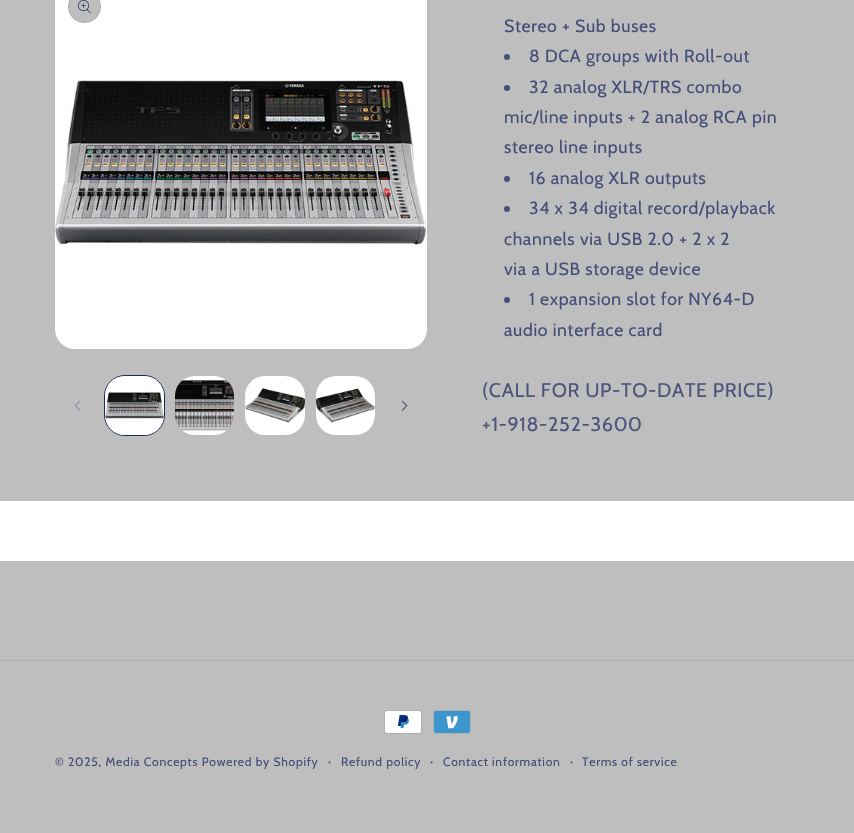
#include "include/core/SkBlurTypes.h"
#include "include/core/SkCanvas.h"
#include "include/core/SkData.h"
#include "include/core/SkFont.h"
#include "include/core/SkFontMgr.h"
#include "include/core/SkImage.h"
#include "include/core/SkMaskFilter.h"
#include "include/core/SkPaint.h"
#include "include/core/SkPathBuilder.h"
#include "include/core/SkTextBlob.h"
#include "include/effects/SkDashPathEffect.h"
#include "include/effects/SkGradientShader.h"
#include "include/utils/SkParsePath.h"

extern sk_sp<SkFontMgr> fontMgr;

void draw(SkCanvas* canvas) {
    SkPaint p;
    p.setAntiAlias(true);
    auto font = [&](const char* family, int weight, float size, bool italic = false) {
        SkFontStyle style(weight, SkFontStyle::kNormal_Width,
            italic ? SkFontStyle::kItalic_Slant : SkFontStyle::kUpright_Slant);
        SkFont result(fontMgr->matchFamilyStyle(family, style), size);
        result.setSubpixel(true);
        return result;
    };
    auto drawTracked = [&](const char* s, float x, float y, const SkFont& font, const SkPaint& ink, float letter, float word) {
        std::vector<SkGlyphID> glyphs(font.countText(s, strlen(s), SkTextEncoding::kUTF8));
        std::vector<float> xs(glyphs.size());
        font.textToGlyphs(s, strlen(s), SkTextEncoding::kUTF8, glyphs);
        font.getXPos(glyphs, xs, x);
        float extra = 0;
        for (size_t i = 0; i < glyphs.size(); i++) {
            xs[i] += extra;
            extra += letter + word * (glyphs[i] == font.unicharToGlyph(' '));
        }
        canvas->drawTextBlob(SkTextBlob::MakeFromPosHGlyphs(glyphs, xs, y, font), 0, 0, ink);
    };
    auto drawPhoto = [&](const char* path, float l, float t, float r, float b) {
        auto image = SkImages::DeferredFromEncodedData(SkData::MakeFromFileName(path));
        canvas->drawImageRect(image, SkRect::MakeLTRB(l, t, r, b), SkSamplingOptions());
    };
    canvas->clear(0xFFFFFFFF);
    p.setColor(0xFFBEBEBE);
    canvas->drawRect(SkRect::MakeLTRB(0, 0, 854, 501), p);
    drawPhoto("media/2.png", 55, 0, 427, 349);
    canvas->drawCircle(84.5f, 6.5f, 16.5f, p);
    p.setStyle(SkPaint::kStroke_Style);
    p.setStrokeWidth(1);
    p.setColor(0x1A1D2860);
    canvas->drawCircle(84.5f, 6.5f, 16, p);
    drawPhoto("media/1.png", 78, 0, 91, 14);
    drawPhoto("media/3.png", 74, 400, 80, 411);
    p.setColor(0xFF1D2860);
    canvas->drawRoundRect(SkRect::MakeLTRB(104.5f, 375.5f, 164.5f, 435.5f), 20.5f, 20.5f, p);
    drawPhoto("media/4.png", 105, 376, 164, 435);
    drawPhoto("media/5.png", 175, 376, 234, 435);
    drawPhoto("media/6.png", 245, 376, 305, 435);
    drawPhoto("media/7.png", 316, 376, 375, 435);
    drawPhoto("media/8.png", 402, 400, 408, 411);
    auto font1 = font("Cabin", 400, 17.6f);
    p.setStyle(SkPaint::kFill_Style);
    p.setColor(0xFF454E78);
    drawTracked("Stereo + Sub buses", 504, 32, font1, p, 0.65f, 0);
    canvas->drawCircle(507, 57, 3, p);
    drawTracked("8 DCA groups with Roll-out", 529, 62, font1, p, 0.65f, 0);
    canvas->drawCircle(507, 88, 3, p);
    {
        const struct { const char* s; float x, y; } items[] = {
            {"32 analog XLR/TRS combo", 529, 93},
            {"mic/line inputs + 2 analog RCA pin", 504, 123},
            {"stereo line inputs", 504, 153},
        };
        for (auto [s, x, y] : items) {
            drawTracked(s, x, y, font1, p, 0.65f, 0);
        }
    }
    canvas->drawCircle(507, 179, 3, p);
    drawTracked("16 analog XLR outputs", 529, 184, font1, p, 0.65f, 0);
    canvas->drawCircle(507, 209, 3, p);
    {
        const struct { const char* s; float x, y; } items[] = {
            {"34 x 34 digital record/playback", 529, 214},
            {"channels via USB 2.0 + 2 x 2", 504, 245},
            {"via a USB storage device", 504, 275},
        };
        for (auto [s, x, y] : items) {
            drawTracked(s, x, y, font1, p, 0.65f, 0);
        }
    }
    canvas->drawCircle(507, 300, 3, p);
    drawTracked("1 expansion slot for NY64-D", 529, 305, font1, p, 0.65f, 0);
    drawTracked("audio interface card", 504, 336, font1, p, 0.65f, 0);
    auto font2 = font("Cabin", 400, 19.75f);
    p.setColor(0xFF4D557C);
    drawTracked("(CALL FOR UP-TO-DATE PRICE)", 482, 397, font2, p, 0.65f, 0);
    drawTracked("+1-918-252-3600", 482, 431, font2, p, 0.65f, 0);
    p.setColor(0xFFBEBEBE);
    canvas->drawRect(SkRect::MakeLTRB(0, 561, 854, 833), p);
    p.setColor(0xFFB1B2B6);
    canvas->drawRect(SkRect::MakeLTRB(0, 660, 854, 661), p);
    drawPhoto("media/9.png", 384, 710, 422, 734);
    drawPhoto("media/10.png", 433, 710, 471, 734);
    auto font3 = font("Cabin", 400, 12.1f);
    p.setColor(0xFF454E78);
    drawTracked("© 2025, Media Concepts Powered by Shopify", 55, 766, font3, p, 0.75f, 0);
    auto font4 = font("Cabin", 400, 13);
    drawTracked("·", 328, 766, font4, p, 0.75f, 0);
    drawTracked("Refund policy", 341, 766, font3, p, 0.75f, 0);
    drawTracked("·", 430, 766, font4, p, 0.75f, 0);
    drawTracked("Contact information", 443, 766, font3, p, 0.75f, 0);
    drawTracked("·", 570, 766, font4, p, 0.75f, 0);
    drawTracked("Terms of service", 582, 766, font3, p, 0.75f, 0);
}
